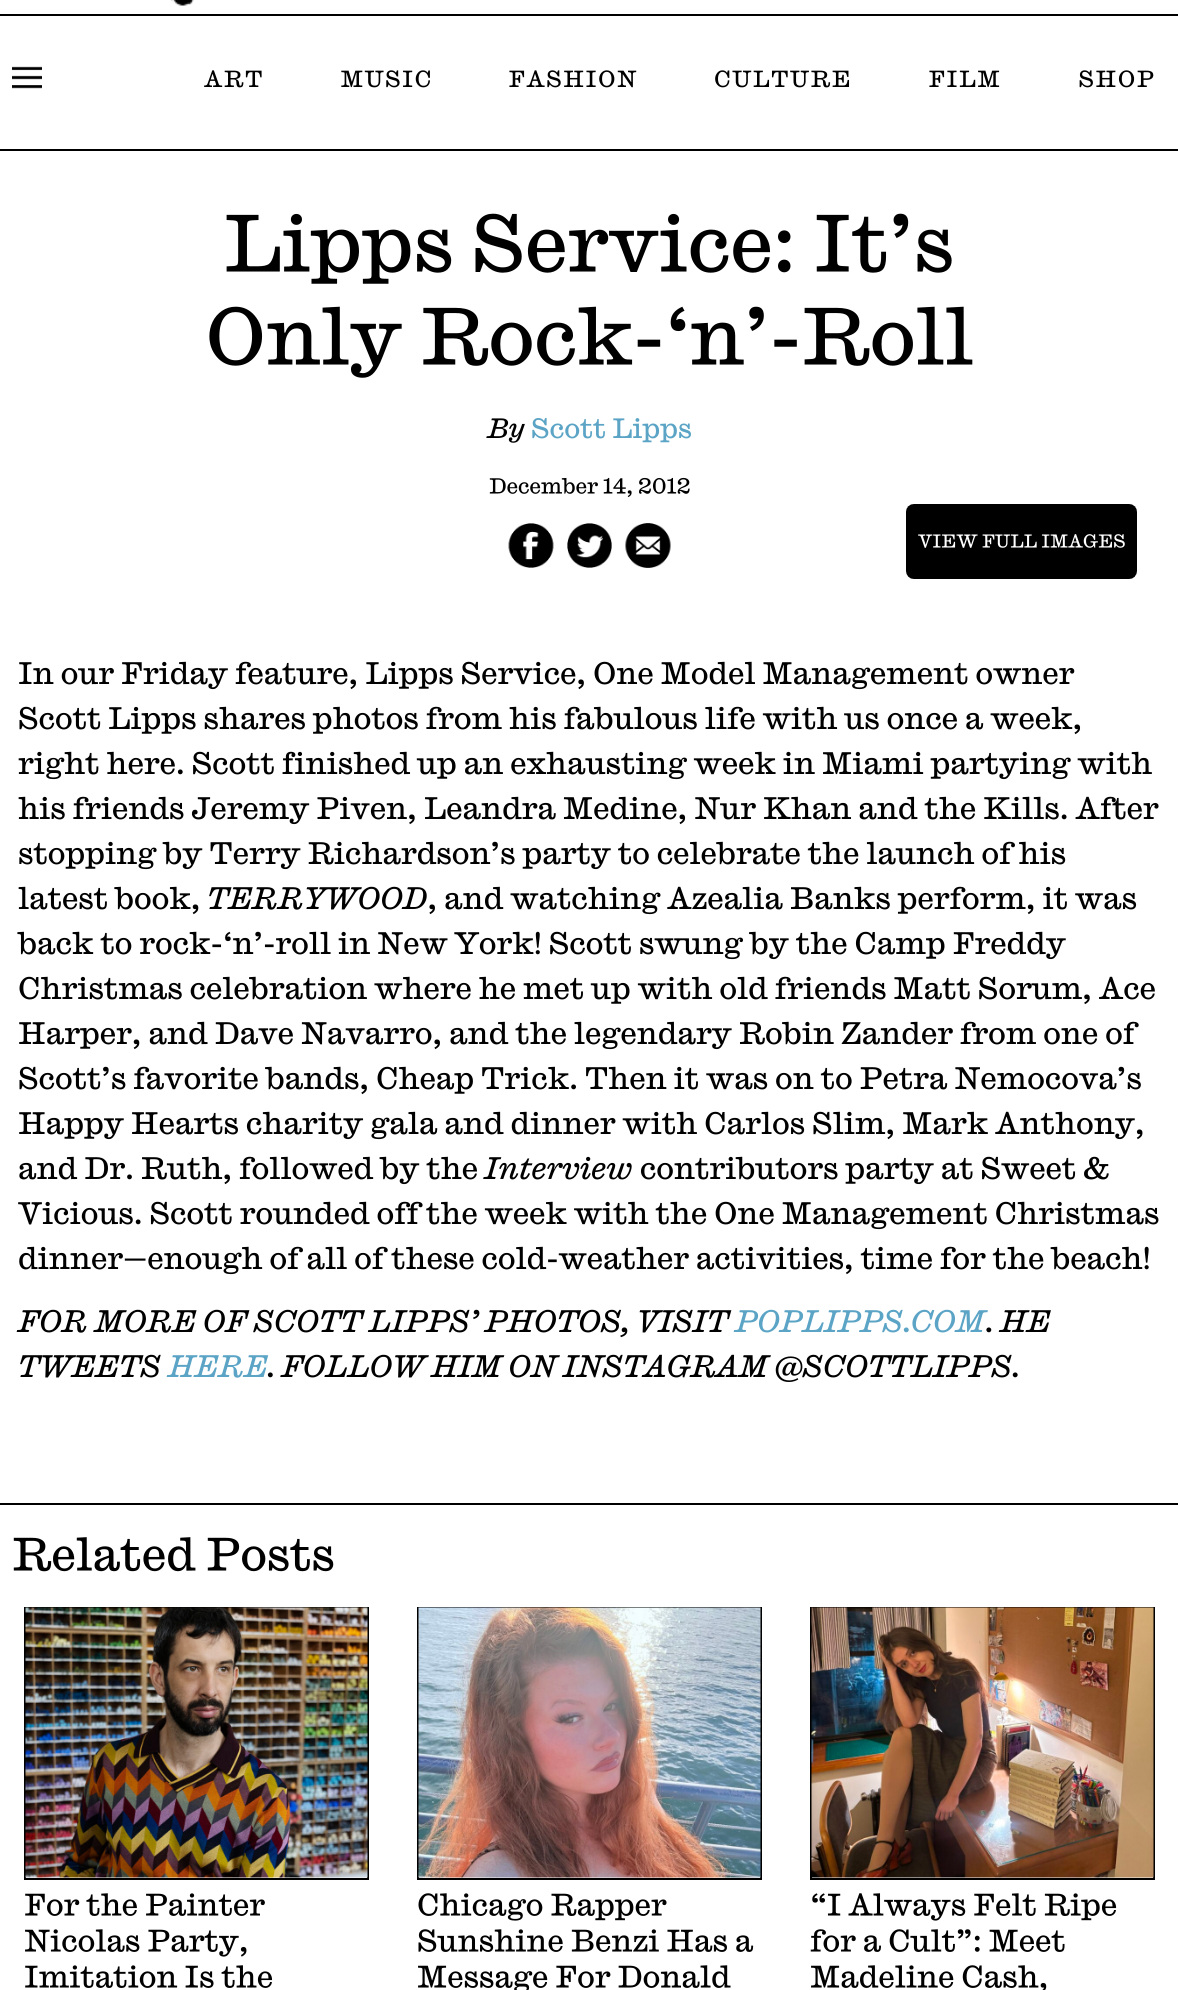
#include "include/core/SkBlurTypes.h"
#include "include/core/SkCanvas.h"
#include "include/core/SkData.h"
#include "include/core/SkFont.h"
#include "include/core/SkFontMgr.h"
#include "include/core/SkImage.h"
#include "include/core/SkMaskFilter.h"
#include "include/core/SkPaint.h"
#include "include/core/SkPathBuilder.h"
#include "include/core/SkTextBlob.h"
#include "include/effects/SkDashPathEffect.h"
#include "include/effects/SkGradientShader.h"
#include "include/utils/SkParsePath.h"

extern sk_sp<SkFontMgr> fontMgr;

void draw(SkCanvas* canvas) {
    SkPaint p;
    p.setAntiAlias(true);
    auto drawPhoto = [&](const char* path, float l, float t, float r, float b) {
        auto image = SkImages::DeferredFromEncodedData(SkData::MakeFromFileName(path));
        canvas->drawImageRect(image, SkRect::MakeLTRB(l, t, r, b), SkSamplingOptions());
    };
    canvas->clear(0xFFFFFFFF);
    drawPhoto("media/1.png", 171, 0, 194, 6);
    p.setColor(0xFF000000);
    canvas->drawRect(SkRect::MakeLTRB(0, 14, 1178, 16), p);
    canvas->drawRect(SkRect::MakeLTRB(0, 149, 1178, 151), p);
    drawPhoto("media/2.png", 12, 66, 42, 89);
    drawPhoto("media/3.png", 204, 70, 262, 88);
    drawPhoto("media/4.png", 341, 70, 430, 88);
    drawPhoto("media/5.png", 509, 70, 637, 88);
    drawPhoto("media/6.png", 715, 70, 850, 88);
    drawPhoto("media/7.png", 929, 70, 1000, 88);
    drawPhoto("media/8.png", 1079, 70, 1154, 88);
    drawPhoto("media/9.png", 226, 213, 952, 284);
    drawPhoto("media/10.png", 209, 306, 973, 378);
    drawPhoto("media/11.png", 486, 418, 525, 443);
    drawPhoto("media/12.png", 532, 418, 691, 443);
    drawPhoto("media/13.png", 489, 477, 690, 497);
    drawPhoto("media/14.png", 508, 523, 554, 568);
    drawPhoto("media/15.png", 567, 523, 612, 568);
    drawPhoto("media/16.png", 625, 523, 671, 568);
    canvas->drawRoundRect(SkRect::MakeLTRB(906, 504, 1137, 579), 8, 8, p);
    drawPhoto("media/17.png", 918, 534, 1125, 548);
    drawPhoto("media/18.png", 19, 661, 1075, 690);
    drawPhoto("media/19.png", 19, 706, 101, 730);
    drawPhoto("media/20.png", 109, 706, 1081, 735);
    drawPhoto("media/21.png", 18, 751, 99, 780);
    drawPhoto("media/22.png", 107, 751, 1152, 780);
    drawPhoto("media/23.png", 18, 796, 1159, 825);
    drawPhoto("media/24.png", 19, 841, 1066, 870);
    drawPhoto("media/25.png", 18, 886, 199, 915);
    drawPhoto("media/26.png", 209, 886, 427, 910);
    drawPhoto("media/27.png", 429, 886, 1137, 915);
    drawPhoto("media/28.png", 17, 931, 1066, 960);
    drawPhoto("media/29.png", 19, 976, 1155, 1005);
    drawPhoto("media/30.png", 19, 1021, 1139, 1050);
    drawPhoto("media/31.png", 19, 1066, 1141, 1095);
    drawPhoto("media/32.png", 19, 1111, 1143, 1140);
    drawPhoto("media/33.png", 19, 1156, 477, 1185);
    drawPhoto("media/34.png", 483, 1156, 632, 1180);
    drawPhoto("media/35.png", 640, 1156, 1109, 1185);
    drawPhoto("media/36.png", 18, 1201, 1159, 1230);
    drawPhoto("media/37.png", 19, 1246, 1149, 1275);
    drawPhoto("media/38.png", 16, 1309, 732, 1338);
    drawPhoto("media/39.png", 733, 1309, 988, 1333);
    drawPhoto("media/40.png", 986, 1310, 1051, 1333);
    drawPhoto("media/41.png", 20, 1354, 161, 1378);
    drawPhoto("media/42.png", 166, 1355, 269, 1378);
    drawPhoto("media/43.png", 267, 1354, 1018, 1382);
    canvas->drawRect(SkRect::MakeLTRB(0, 1503, 1178, 1505), p);
    drawPhoto("media/44.png", 13, 1537, 334, 1572);
    p.setStyle(SkPaint::kStroke_Style);
    p.setStrokeWidth(2);
    canvas->drawRect(SkRect::MakeLTRB(25, 1608, 368, 1879), p);
    drawPhoto("media/45.png", 25, 1607, 368, 1878);
    drawPhoto("media/46.png", 25, 1893, 265, 1916);
    drawPhoto("media/47.png", 25, 1929, 247, 1957);
    drawPhoto("media/48.png", 25, 1965, 273, 1988);
    canvas->drawRect(SkRect::MakeLTRB(418, 1608, 761, 1879), p);
    drawPhoto("media/49.png", 418, 1607, 761, 1878);
    drawPhoto("media/50.png", 418, 1893, 667, 1921);
    drawPhoto("media/51.png", 418, 1929, 754, 1952);
    drawPhoto("media/52.png", 418, 1965, 731, 1990);
    canvas->drawRect(SkRect::MakeLTRB(811, 1608, 1154, 1879), p);
    drawPhoto("media/53.png", 811, 1607, 1154, 1878);
    drawPhoto("media/54.png", 812, 1893, 1117, 1921);
    drawPhoto("media/55.png", 810, 1929, 1065, 1952);
    drawPhoto("media/56.png", 811, 1965, 1047, 1990);
}
